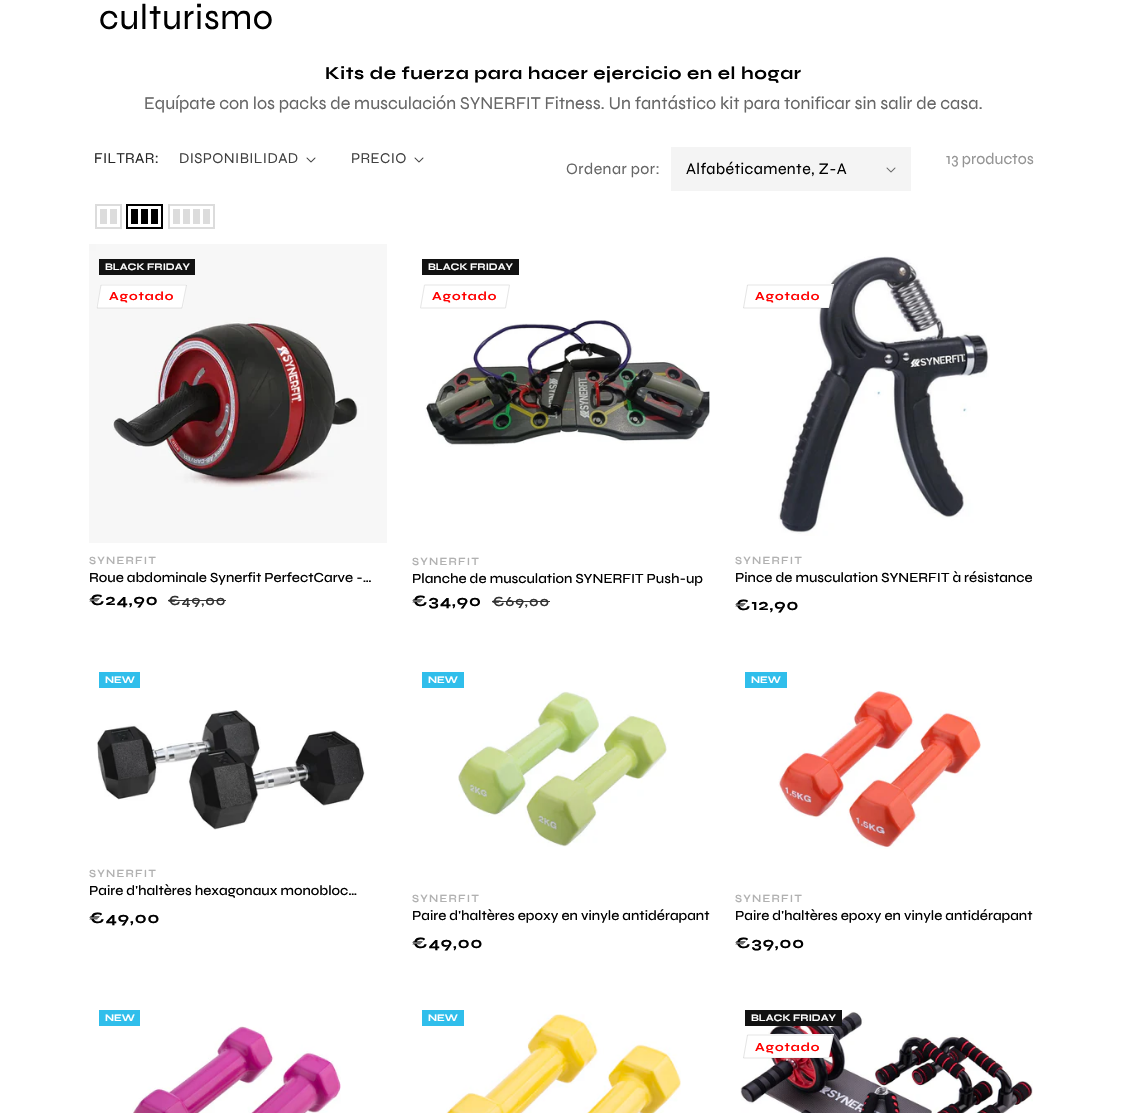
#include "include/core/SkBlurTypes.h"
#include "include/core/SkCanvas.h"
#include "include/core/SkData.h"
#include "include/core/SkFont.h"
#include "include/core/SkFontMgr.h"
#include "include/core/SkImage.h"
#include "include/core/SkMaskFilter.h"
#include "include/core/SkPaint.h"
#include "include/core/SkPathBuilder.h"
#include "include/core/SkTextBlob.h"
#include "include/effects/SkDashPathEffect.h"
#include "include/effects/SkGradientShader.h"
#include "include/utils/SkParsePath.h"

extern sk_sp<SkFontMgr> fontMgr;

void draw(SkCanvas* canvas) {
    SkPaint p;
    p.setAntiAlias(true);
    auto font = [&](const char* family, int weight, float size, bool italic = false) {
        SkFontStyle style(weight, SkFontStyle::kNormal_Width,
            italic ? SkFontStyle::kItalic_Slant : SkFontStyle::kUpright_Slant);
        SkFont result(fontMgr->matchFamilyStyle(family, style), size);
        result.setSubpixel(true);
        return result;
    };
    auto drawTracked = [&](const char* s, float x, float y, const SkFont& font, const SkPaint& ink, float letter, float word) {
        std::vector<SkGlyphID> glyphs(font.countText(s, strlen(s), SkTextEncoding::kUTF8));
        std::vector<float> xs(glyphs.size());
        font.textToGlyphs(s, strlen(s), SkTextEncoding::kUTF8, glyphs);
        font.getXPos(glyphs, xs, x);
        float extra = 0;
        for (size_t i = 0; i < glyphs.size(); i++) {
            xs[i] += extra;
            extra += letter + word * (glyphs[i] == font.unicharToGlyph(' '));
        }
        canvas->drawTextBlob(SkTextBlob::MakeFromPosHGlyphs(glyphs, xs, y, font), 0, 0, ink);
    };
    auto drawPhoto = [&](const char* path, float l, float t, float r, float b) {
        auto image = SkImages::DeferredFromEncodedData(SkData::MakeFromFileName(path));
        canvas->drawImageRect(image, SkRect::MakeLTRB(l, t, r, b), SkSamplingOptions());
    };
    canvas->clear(0xFFFFFFFF);
    auto font1 = font("Syne", 400, 36);
    p.setColor(0xFF000000);
    drawTracked("culturismo", 99, 29, font1, p, 0.6f, 0);
    auto font2 = font("Syne", 700, 18);
    drawTracked("Kits de fuerza para hacer ejercicio en el hogar", 325, 79, font2, p, 0.6f, 0);
    auto font3 = font("Syne", 400, 18);
    p.setColor(0xFF666666);
    canvas->drawString("Equípate con los packs de musculación SYNERFIT Fitness. Un fantástico kit para tonificar sin salir de casa.", 144, 109, font3, p);
    auto font4 = font("Syne", 400, 15);
    p.setColor(0xFF262626);
    drawTracked("FILTRAR:", 94, 163, font4, p, 0.4f, 0);
    p.setColor(0xFF404040);
    drawTracked("DISPONIBILIDAD", 179, 163, font4, p, 0.4f, 0);
    drawPhoto("media/1.png", 306, 157, 316, 163);
    drawTracked("PRECIO", 351, 163, font4, p, 0.4f, 0);
    drawPhoto("media/1.png", 414, 157, 424, 163);
    auto font5 = font("Syne", 400, 16);
    p.setColor(0xFF949494);
    canvas->drawString("13 productos", 946, 164, font5, p);
    p.setColor(0xFF666666);
    drawTracked("Ordenar por:", 566, 174, font5, p, 0.4f, 0);
    p.setColor(0xFFF4F4F4);
    canvas->drawRect(SkRect::MakeLTRB(671, 147, 911, 191), p);
    p.setColor(0xFF000000);
    drawTracked("Alfabéticamente, Z-A", 686, 174, font5, p, 0.4f, 0);
    drawPhoto("media/2.png", 886, 167, 896, 173);
    p.setStyle(SkPaint::kStroke_Style);
    p.setStrokeWidth(2);
    p.setColor(0xFFDCDCDC);
    canvas->drawRect(SkRect::MakeLTRB(96, 205, 121, 228), p);
    p.setStyle(SkPaint::kFill_Style);
    canvas->drawRect(SkRect::MakeLTRB(110, 209, 117, 224), p);
    canvas->drawRect(SkRect::MakeLTRB(100, 209, 107, 224), p);
    p.setStyle(SkPaint::kStroke_Style);
    p.setColor(0xFF000000);
    canvas->drawRect(SkRect::MakeLTRB(127, 205, 162, 228), p);
    p.setStyle(SkPaint::kFill_Style);
    {
        const struct { float l, t, r, b; SkColor color; } items[] = {
            {151, 209, 158, 224, 0xFF000000},
            {141, 209, 148, 224, 0xFF000000},
            {131, 209, 138, 224, 0xFF000000},
        };
        for (auto [l, t, r, b, color] : items) {
            p.setColor(color);
            canvas->drawRect(SkRect::MakeLTRB(l, t, r, b), p);
        }
    }
    p.setStyle(SkPaint::kStroke_Style);
    p.setColor(0xFFDCDCDC);
    canvas->drawRect(SkRect::MakeLTRB(169, 205, 214, 228), p);
    p.setStyle(SkPaint::kFill_Style);
    {
        const struct { float l, t, r, b; SkColor color; } items[] = {
            {203, 209, 210, 224, 0xFFDCDCDC},
            {193, 209, 200, 224, 0xFFDCDCDC},
            {183, 209, 190, 224, 0xFFDCDCDC},
            {173, 209, 180, 224, 0xFFDCDCDC},
        };
        for (auto [l, t, r, b, color] : items) {
            p.setColor(color);
            canvas->drawRect(SkRect::MakeLTRB(l, t, r, b), p);
        }
    }
    drawPhoto("media/3.png", 89, 244, 387, 543);
    p.setColor(0xFF121212);
    canvas->drawRect(SkRect::MakeLTRB(99, 259, 195, 275), p);
    auto font6 = font("Syne", 700, 10);
    p.setColor(0xFFFFFFFF);
    canvas->drawString("BLACK FRIDAY", 105, 270, font6, p);
    canvas->drawPath(SkPathBuilder().moveTo(101, 284).lineTo(187, 284).lineTo(183, 308).lineTo(96, 308).close().detach(), p);
    p.setStyle(SkPaint::kStroke_Style);
    p.setStrokeWidth(1);
    p.setColor(0x1A000000);
    canvas->drawPath(SkPathBuilder().moveTo(101, 285).lineTo(186.5f, 285).lineTo(182, 308).lineTo(97, 308).close().detach(), p);
    auto font7 = font("Syne", 700, 12.25f);
    p.setStyle(SkPaint::kFill_Style);
    p.setColor(0xFFFF0000);
    drawTracked("Agotado", 109, 300, font7, p, 1, 0);
    auto font8 = font("Syne", 600, 11);
    p.setColor(0xFFB1B1B1);
    drawTracked("SYNERFIT", 89, 564, font8, p, 1.25f, 0);
    auto font9 = font("Syne", 500, 14);
    p.setColor(0xFF000000);
    canvas->drawString("Roue abdominale Synerfit PerfectCarve -…", 89, 582, font9, p);
    auto font10 = font("Syne", 700, 16);
    drawTracked("€24,90", 89, 605, font10, p, 1, 0);
    auto font11 = font("Syne", 600, 14);
    p.setColor(0xFF333333);
    drawTracked("€49,00", 168, 605, font11, p, 1, 0);
    canvas->drawRect(SkRect::MakeLTRB(168, 600, 226, 601), p);
    p.setColor(0xFF121212);
    canvas->drawRect(SkRect::MakeLTRB(422, 259, 519, 275), p);
    p.setColor(0xFFFFFFFF);
    canvas->drawString("BLACK FRIDAY", 428, 270, font6, p);
    p.setStyle(SkPaint::kStroke_Style);
    p.setColor(0xFFE6E6E6);
    canvas->drawPath(SkPathBuilder().moveTo(424.5f, 285).lineTo(509.5f, 285).lineTo(505.5f, 308).lineTo(420.5f, 308).close().detach(), p);
    p.setStyle(SkPaint::kFill_Style);
    p.setColor(0xFFFF0000);
    drawTracked("Agotado", 432, 300, font7, p, 1, 0);
    drawPhoto("media/4.png", 425, 320, 710, 447);
    p.setColor(0xFFB1B1B1);
    drawTracked("SYNERFIT", 412, 565, font8, p, 1.25f, 0);
    p.setColor(0xFF000000);
    canvas->drawString("Planche de musculation SYNERFIT Push-up", 412, 583, font9, p);
    drawTracked("€34,90", 412, 606, font10, p, 1, 0);
    p.setColor(0xFF333333);
    drawTracked("€69,00", 492, 606, font11, p, 1, 0);
    canvas->drawRect(SkRect::MakeLTRB(492, 601, 550, 602), p);
    drawPhoto("media/5.png", 778, 256, 990, 536);
    p.setColor(0xFFFFFFFF);
    canvas->drawPath(SkPathBuilder().moveTo(747, 284).lineTo(834, 284).lineTo(829, 308).lineTo(743, 308).close().detach(), p);
    p.setStyle(SkPaint::kStroke_Style);
    p.setColor(0x1A000000);
    canvas->drawPath(SkPathBuilder().moveTo(747.5f, 285).lineTo(833, 285).lineTo(829, 308).lineTo(743.5f, 308).close().detach(), p);
    p.setStyle(SkPaint::kFill_Style);
    p.setColor(0xFFFF0000);
    drawTracked("Agotado", 755, 300, font7, p, 1, 0);
    p.setColor(0xFFB1B1B1);
    drawTracked("SYNERFIT", 735, 564, font8, p, 1.25f, 0);
    p.setColor(0xFF000000);
    canvas->drawString("Pince de musculation SYNERFIT à résistance", 735, 582, font9, p);
    drawTracked("€12,90", 735, 610, font10, p, 1, 0);
    p.setColor(0xFF30BEEB);
    canvas->drawRect(SkRect::MakeLTRB(99, 672, 140, 688), p);
    p.setColor(0xFFFFFFFF);
    canvas->drawString("NEW", 105, 683, font6, p);
    drawPhoto("media/6.png", 97, 710, 365, 830);
    p.setColor(0xFFB1B1B1);
    drawTracked("SYNERFIT", 89, 877, font8, p, 1.25f, 0);
    p.setColor(0xFF000000);
    canvas->drawString("Paire d'haltères hexagonaux monobloc…", 89, 895, font9, p);
    drawTracked("€49,00", 89, 923, font10, p, 1, 0);
    p.setColor(0xFF30BEEB);
    canvas->drawRect(SkRect::MakeLTRB(422, 672, 464, 688), p);
    p.setColor(0xFFFFFFFF);
    canvas->drawString("NEW", 428, 683, font6, p);
    drawPhoto("media/7.png", 458, 691, 668, 847);
    p.setColor(0xFFB1B1B1);
    drawTracked("SYNERFIT", 412, 902, font8, p, 1.25f, 0);
    p.setColor(0xFF000000);
    canvas->drawString("Paire d'haltères epoxy en vinyle antidérapant", 412, 920, font9, p);
    drawTracked("€49,00", 412, 948, font10, p, 1, 0);
    p.setColor(0xFF30BEEB);
    canvas->drawRect(SkRect::MakeLTRB(745, 672, 787, 688), p);
    p.setColor(0xFFFFFFFF);
    canvas->drawString("NEW", 751, 683, font6, p);
    drawPhoto("media/8.png", 778, 690, 981, 849);
    p.setColor(0xFFB1B1B1);
    drawTracked("SYNERFIT", 735, 902, font8, p, 1.25f, 0);
    p.setColor(0xFF000000);
    canvas->drawString("Paire d'haltères epoxy en vinyle antidérapant", 735, 920, font9, p);
    drawTracked("€39,00", 735, 948, font10, p, 1, 0);
    p.setColor(0xFF30BEEB);
    canvas->drawRect(SkRect::MakeLTRB(99, 1010, 140, 1026), p);
    p.setColor(0xFFFFFFFF);
    canvas->drawString("NEW", 105, 1021, font6, p);
    drawPhoto("media/9.png", 132, 1026, 341, 1113);
    drawPhoto("media/10.png", 446, 1014, 681, 1113);
    p.setColor(0xFF30BEEB);
    canvas->drawRect(SkRect::MakeLTRB(422, 1010, 464, 1026), p);
    p.setColor(0xFFFFFFFF);
    canvas->drawString("NEW", 428, 1021, font6, p);
    drawPhoto("media/11.png", 740, 1011, 1033, 1113);
    p.setColor(0xFF121212);
    canvas->drawRect(SkRect::MakeLTRB(745, 1010, 842, 1026), p);
    p.setColor(0xFFFFFFFF);
    canvas->drawString("BLACK FRIDAY", 751, 1021, font6, p);
    canvas->drawPath(SkPathBuilder().moveTo(747, 1034).lineTo(834, 1034).lineTo(829, 1058).lineTo(743, 1058).close().detach(), p);
    p.setStyle(SkPaint::kStroke_Style);
    p.setColor(0x1A000000);
    canvas->drawPath(SkPathBuilder().moveTo(747.5f, 1035).lineTo(833, 1035).lineTo(829, 1058).lineTo(743.5f, 1058).close().detach(), p);
    p.setStyle(SkPaint::kFill_Style);
    p.setColor(0xFFFF0000);
    drawTracked("Agotado", 755, 1051, font7, p, 1, 0);
}
